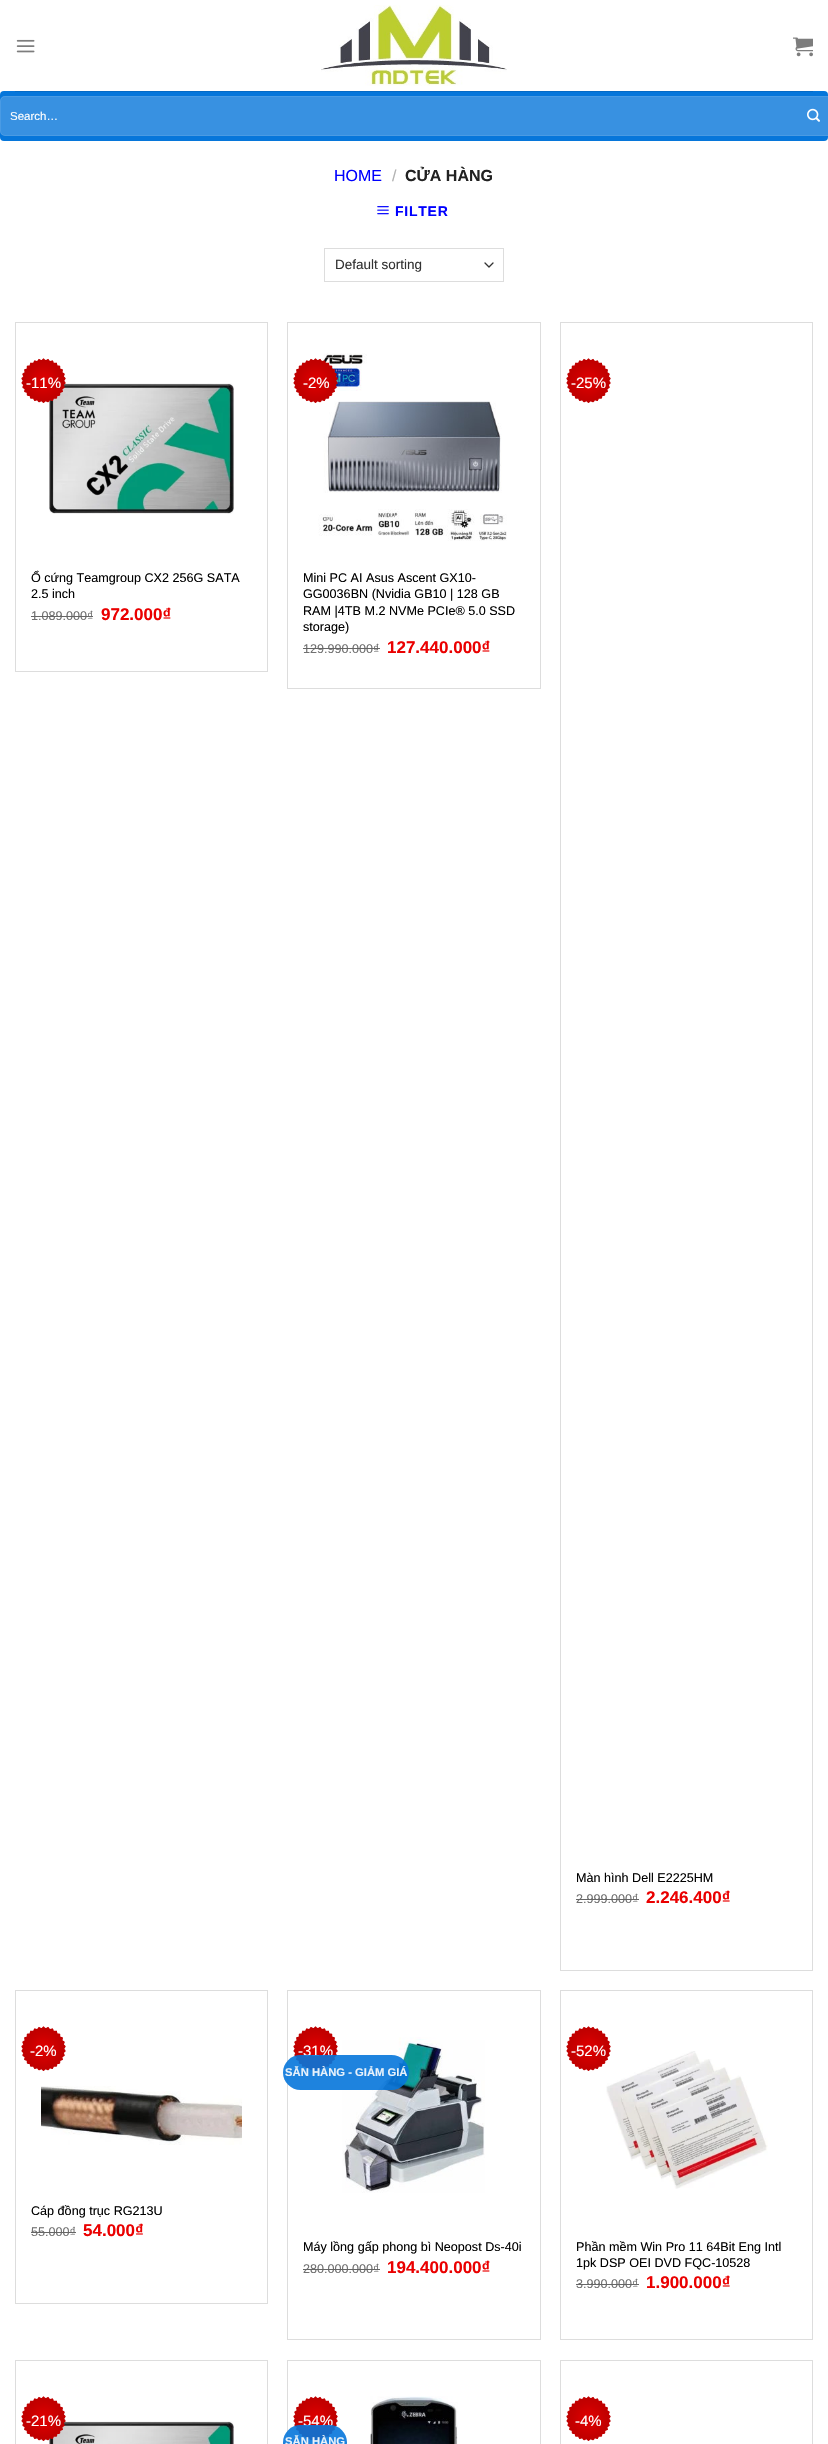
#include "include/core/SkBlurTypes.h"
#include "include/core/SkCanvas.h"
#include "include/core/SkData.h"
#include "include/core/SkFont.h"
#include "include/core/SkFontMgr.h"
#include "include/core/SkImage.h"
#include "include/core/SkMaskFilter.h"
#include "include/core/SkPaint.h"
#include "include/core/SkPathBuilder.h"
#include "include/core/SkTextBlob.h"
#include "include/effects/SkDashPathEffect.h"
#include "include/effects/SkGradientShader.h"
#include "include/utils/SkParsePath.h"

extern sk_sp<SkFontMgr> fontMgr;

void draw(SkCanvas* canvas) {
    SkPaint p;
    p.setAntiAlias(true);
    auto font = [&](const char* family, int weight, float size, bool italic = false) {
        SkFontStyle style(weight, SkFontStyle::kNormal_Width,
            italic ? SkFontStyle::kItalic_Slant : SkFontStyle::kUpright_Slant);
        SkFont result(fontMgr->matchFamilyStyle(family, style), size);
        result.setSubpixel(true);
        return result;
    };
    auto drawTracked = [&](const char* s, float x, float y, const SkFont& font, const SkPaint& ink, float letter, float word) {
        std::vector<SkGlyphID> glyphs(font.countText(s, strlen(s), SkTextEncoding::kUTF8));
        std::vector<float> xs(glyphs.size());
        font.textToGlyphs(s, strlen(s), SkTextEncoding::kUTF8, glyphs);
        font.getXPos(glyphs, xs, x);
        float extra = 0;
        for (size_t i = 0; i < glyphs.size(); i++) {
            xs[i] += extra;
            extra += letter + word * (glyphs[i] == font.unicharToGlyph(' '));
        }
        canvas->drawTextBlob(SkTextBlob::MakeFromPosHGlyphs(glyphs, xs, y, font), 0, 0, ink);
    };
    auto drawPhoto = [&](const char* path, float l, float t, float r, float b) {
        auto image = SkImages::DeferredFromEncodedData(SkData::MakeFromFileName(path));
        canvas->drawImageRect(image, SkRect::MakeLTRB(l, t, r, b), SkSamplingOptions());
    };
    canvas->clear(0xFFFFFFFF);
    drawPhoto("media/1.png", 16, 39, 35, 53);
    drawPhoto("media/2.png", 321, 5, 507, 86);
    drawPhoto("media/3.png", 793, 37, 813, 57);
    p.setColor(0xFF0676DA);
    canvas->drawRoundRect(SkRect::MakeLTRB(0, 91, 828, 141), 4, 4, p);
    p.setColor(0xFF056AC4);
    canvas->drawRect(SkRect::MakeLTRB(15, 91, 813, 92), p);
    p.setColor(0xFF3891E1);
    canvas->drawRoundRect(SkRect::MakeLTRB(0, 96, 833, 136), 5, 5, p);
    p.setStyle(SkPaint::kStroke_Style);
    p.setStrokeWidth(1);
    p.setColor(0x17FFFFFF);
    canvas->drawRoundRect(SkRect::MakeLTRB(0.5f, 96.5f, 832.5f, 135.5f), 4.5f, 4.5f, p);
    auto font1 = font("Liberation Sans", 400, 11.5f);
    p.setStyle(SkPaint::kFill_Style);
    p.setColor(0xFFFFFFFF);
    canvas->drawString("Search…", 10, 120, font1, p);
    drawPhoto("media/4.png", 807, 108, 820, 122);
    auto font2 = font("Liberation Sans", 400, 16);
    p.setColor(0xFF0000FF);
    canvas->drawString("HOME", 334, 181, font2, p);
    p.setColor(0xFFB2B2B2);
    canvas->drawString("/", 392, 181, font2, p);
    auto font3 = font("Liberation Sans", 700, 16);
    p.setColor(0xFF222222);
    canvas->drawString("CỬA HÀNG", 405, 181, font3, p);
    drawPhoto("media/5.png", 377, 206, 389, 215);
    auto font4 = font("Liberation Sans", 700, 14);
    p.setColor(0xFF0000FF);
    drawTracked("FILTER", 395, 216, font4, p, 0.75f, 0);
    p.setStyle(SkPaint::kStroke_Style);
    p.setStrokeWidth(1.3f);
    p.setStrokeCap(SkPaint::kRound_Cap);
    p.setStrokeJoin(SkPaint::kRound_Join);
    p.setColor(0xFF333333);
    canvas->drawPath(SkPathBuilder().moveTo(485, 263).lineTo(489, 267).lineTo(493, 263).detach(), p);
    p.setStrokeWidth(1);
    p.setStrokeCap(SkPaint::kButt_Cap);
    p.setStrokeJoin(SkPaint::kMiter_Join);
    p.setColor(0xFFDDDDDD);
    canvas->drawRect(SkRect::MakeLTRB(324.5f, 248.5f, 503.5f, 281.5f), p);
    auto font5 = font("Liberation Sans", 400, 13.5f);
    p.setStyle(SkPaint::kFill_Style);
    p.setColor(0xFF333333);
    canvas->drawString("Default sorting", 335, 269, font5, p);
    p.setStyle(SkPaint::kStroke_Style);
    p.setColor(0xFFDDDDDD);
    canvas->drawRect(SkRect::MakeLTRB(15.5f, 322.5f, 267.5f, 671.5f), p);
    drawPhoto("media/7.png", 49, 383, 234, 514);
    drawPhoto("media/6.png", 21, 358, 66, 403);
    auto font6 = font("Liberation Sans", 400, 15);
    p.setStyle(SkPaint::kFill_Style);
    p.setColor(0xFFFFFFFF);
    canvas->drawString("-11%", 26, 388, font6, p);
    auto font7 = font("Liberation Sans", 400, 12.6f);
    p.setColor(0xFF000000);
    canvas->drawString("Ổ cứng Teamgroup CX2 256G SATA", 31, 582, font7, p);
    canvas->drawString("2.5 inch", 31, 598, font7, p);
    p.setColor(0xFF707070);
    canvas->drawString("1.089.000₫", 31, 620, font7, p);
    p.setColor(0xFF666666);
    canvas->drawRect(SkRect::MakeLTRB(31, 616, 93, 617), p);
    auto font8 = font("Liberation Sans", 700, 17);
    p.setColor(0xFFEA0000);
    canvas->drawString("972.000₫", 101, 620, font8, p);
    p.setStyle(SkPaint::kStroke_Style);
    p.setColor(0xFFDDDDDD);
    canvas->drawRect(SkRect::MakeLTRB(287.5f, 322.5f, 540.5f, 688.5f), p);
    drawPhoto("media/9.png", 318, 353, 507, 541);
    drawPhoto("media/8.png", 293, 358, 338, 403);
    p.setStyle(SkPaint::kFill_Style);
    p.setColor(0xFFFFFFFF);
    canvas->drawString("-2%", 303, 388, font6, p);
    p.setColor(0xFF000000);
    {
        const struct { const char* s; float x, y; } items[] = {
            {"Mini PC AI Asus Ascent GX10-", 303, 582},
            {"GG0036BN (Nvidia GB10 | 128 GB", 303, 598},
            {"RAM |4TB M.2 NVMe PCIe® 5.0 SSD", 303, 615},
            {"storage)", 303, 631},
        };
        for (auto [s, x, y] : items) {
            canvas->drawString(s, x, y, font7, p);
        }
    }
    p.setColor(0xFF707070);
    canvas->drawString("129.990.000₫", 303, 653, font7, p);
    p.setColor(0xFF666666);
    canvas->drawRect(SkRect::MakeLTRB(303, 648, 380, 649), p);
    p.setColor(0xFFEA0000);
    canvas->drawString("127.440.000₫", 387, 653, font8, p);
    p.setStyle(SkPaint::kStroke_Style);
    p.setColor(0xFFDDDDDD);
    canvas->drawRect(SkRect::MakeLTRB(560.5f, 322.5f, 812.5f, 1970.5f), p);
    drawPhoto("media/10.png", 566, 358, 611, 403);
    p.setStyle(SkPaint::kFill_Style);
    p.setColor(0xFFFFFFFF);
    canvas->drawString("-25%", 571, 388, font6, p);
    p.setColor(0xFF000000);
    canvas->drawString("Màn hình Dell E2225HM", 576, 1882, font7, p);
    p.setColor(0xFF707070);
    canvas->drawString("2.999.000₫", 576, 1903, font7, p);
    p.setColor(0xFF666666);
    canvas->drawRect(SkRect::MakeLTRB(576, 1899, 639, 1900), p);
    p.setColor(0xFFEA0000);
    canvas->drawString("2.246.400₫", 646, 1903, font8, p);
    p.setStyle(SkPaint::kStroke_Style);
    p.setColor(0xFFDDDDDD);
    canvas->drawRect(SkRect::MakeLTRB(15.5f, 1990.5f, 267.5f, 2303.5f), p);
    drawPhoto("media/10.png", 21, 2026, 66, 2071);
    p.setStyle(SkPaint::kFill_Style);
    p.setColor(0xFFFFFFFF);
    canvas->drawString("-2%", 30, 2056, font6, p);
    drawPhoto("media/11.png", 41, 2086, 242, 2145);
    p.setColor(0xFF000000);
    canvas->drawString("Cáp đồng trục RG213U", 31, 2215, font7, p);
    p.setColor(0xFF707070);
    canvas->drawString("55.000₫", 31, 2236, font7, p);
    p.setColor(0xFF666666);
    canvas->drawRect(SkRect::MakeLTRB(31, 2232, 76, 2233), p);
    p.setColor(0xFFEA0000);
    canvas->drawString("54.000₫", 83, 2236, font8, p);
    p.setStyle(SkPaint::kStroke_Style);
    p.setColor(0xFFDDDDDD);
    canvas->drawRect(SkRect::MakeLTRB(287.5f, 1990.5f, 540.5f, 2339.5f), p);
    drawPhoto("media/10.png", 293, 2026, 338, 2071);
    p.setStyle(SkPaint::kFill_Style);
    p.setColor(0xFFFFFFFF);
    canvas->drawString("-31%", 298, 2056, font6, p);
    drawPhoto("media/12.png", 342, 2037, 485, 2193);
    p.setColor(0xE60676DA);
    canvas->drawRoundRect(SkRect::MakeLTRB(283, 2055, 409, 2090), 17.5f, 17.5f, p);
    auto font9 = font("Liberation Sans", 700, 11.25f);
    p.setColor(0xFFE8F2FB);
    canvas->drawString("SẴN HÀNG - GIẢM GIÁ", 285, 2076, font9, p);
    p.setColor(0xFF000000);
    canvas->drawString("Máy lồng gấp phong bì Neopost Ds-40i", 303, 2251, font7, p);
    p.setColor(0xFF707070);
    canvas->drawString("280.000.000₫", 303, 2273, font7, p);
    p.setColor(0xFF666666);
    canvas->drawRect(SkRect::MakeLTRB(303, 2269, 380, 2270), p);
    p.setColor(0xFFEA0000);
    canvas->drawString("194.400.000₫", 387, 2273, font8, p);
    p.setStyle(SkPaint::kStroke_Style);
    p.setColor(0xFFDDDDDD);
    canvas->drawRect(SkRect::MakeLTRB(560.5f, 1990.5f, 812.5f, 2339.5f), p);
    drawPhoto("media/13.png", 606, 2051, 768, 2189);
    drawPhoto("media/10.png", 566, 2026, 611, 2071);
    p.setStyle(SkPaint::kFill_Style);
    p.setColor(0xFFFFFFFF);
    canvas->drawString("-52%", 571, 2056, font6, p);
    p.setColor(0xFF000000);
    canvas->drawString("Phần mềm Win Pro 11 64Bit Eng Intl", 576, 2251, font7, p);
    canvas->drawString("1pk DSP OEI DVD FQC-10528", 576, 2267, font7, p);
    p.setColor(0xFF707070);
    canvas->drawString("3.990.000₫", 576, 2288, font7, p);
    p.setColor(0xFF666666);
    canvas->drawRect(SkRect::MakeLTRB(576, 2284, 639, 2285), p);
    p.setColor(0xFFEA0000);
    canvas->drawString("1.900.000₫", 646, 2288, font8, p);
    p.setStyle(SkPaint::kStroke_Style);
    p.setColor(0xFFDDDDDD);
    canvas->drawRect(SkRect::MakeLTRB(15.5f, 2360.5f, 267.5f, 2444.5f), p);
    drawPhoto("media/14.png", 49, 2421, 234, 2444);
    drawPhoto("media/6.png", 21, 2396, 66, 2441);
    p.setStyle(SkPaint::kFill_Style);
    p.setColor(0xFFFFFFFF);
    canvas->drawString("-21%", 26, 2426, font6, p);
    p.setStyle(SkPaint::kStroke_Style);
    p.setColor(0xFFDDDDDD);
    canvas->drawRect(SkRect::MakeLTRB(287.5f, 2360.5f, 540.5f, 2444.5f), p);
    drawPhoto("media/10.png", 293, 2396, 338, 2441);
    p.setStyle(SkPaint::kFill_Style);
    p.setColor(0xFFFFFFFF);
    canvas->drawString("-54%", 298, 2426, font6, p);
    p.setColor(0xE60676DA);
    canvas->drawRoundRect(SkRect::MakeLTRB(283, 2425, 347, 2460), 17.5f, 17.5f, p);
    p.setColor(0xFFE8F2FB);
    canvas->drawString("SẴN HÀNG", 285, 2445, font9, p);
    drawPhoto("media/15.png", 370, 2396, 458, 2444);
    p.setStyle(SkPaint::kStroke_Style);
    p.setColor(0xFFDDDDDD);
    canvas->drawRect(SkRect::MakeLTRB(560.5f, 2360.5f, 812.5f, 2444.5f), p);
    drawPhoto("media/10.png", 566, 2396, 611, 2441);
    p.setStyle(SkPaint::kFill_Style);
    p.setColor(0xFFFFFFFF);
    canvas->drawString("-4%", 575, 2426, font6, p);
}
